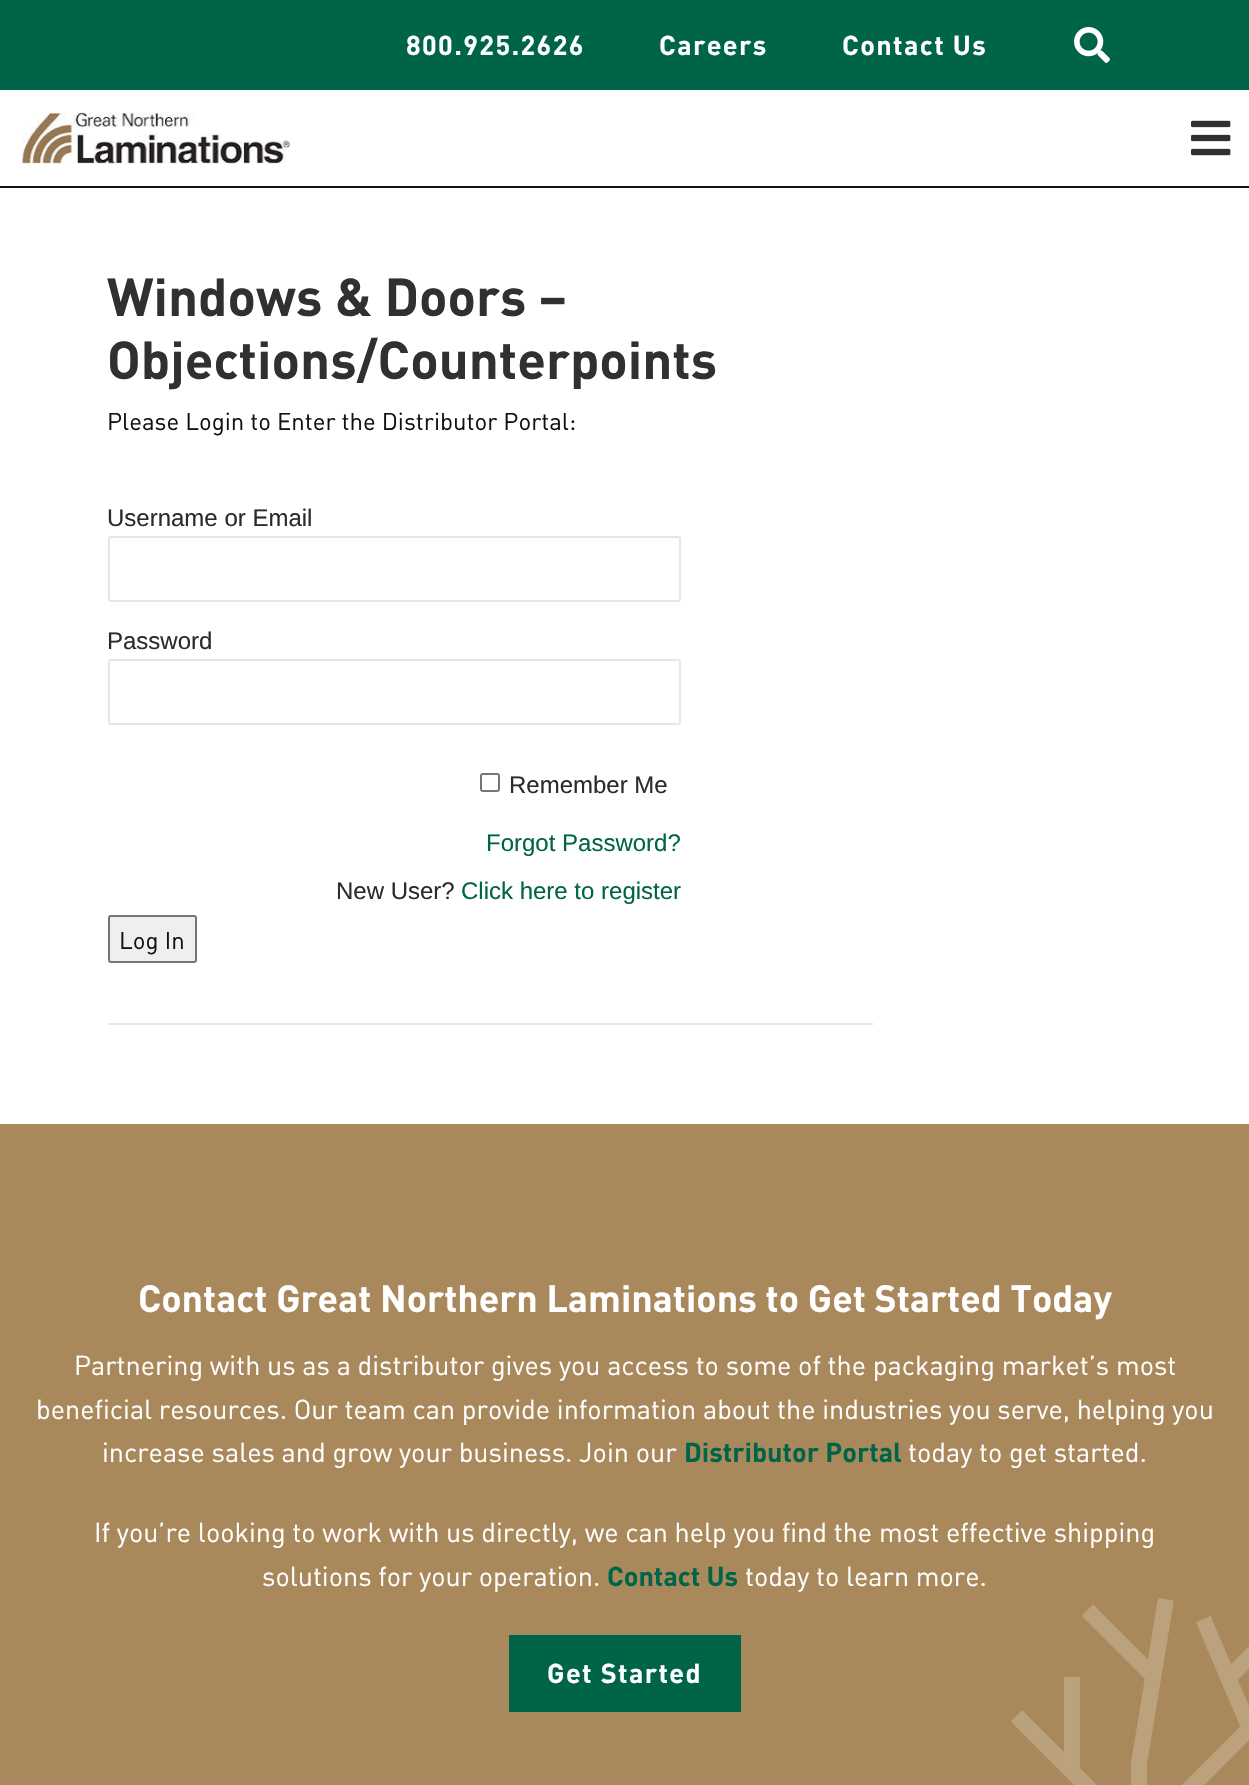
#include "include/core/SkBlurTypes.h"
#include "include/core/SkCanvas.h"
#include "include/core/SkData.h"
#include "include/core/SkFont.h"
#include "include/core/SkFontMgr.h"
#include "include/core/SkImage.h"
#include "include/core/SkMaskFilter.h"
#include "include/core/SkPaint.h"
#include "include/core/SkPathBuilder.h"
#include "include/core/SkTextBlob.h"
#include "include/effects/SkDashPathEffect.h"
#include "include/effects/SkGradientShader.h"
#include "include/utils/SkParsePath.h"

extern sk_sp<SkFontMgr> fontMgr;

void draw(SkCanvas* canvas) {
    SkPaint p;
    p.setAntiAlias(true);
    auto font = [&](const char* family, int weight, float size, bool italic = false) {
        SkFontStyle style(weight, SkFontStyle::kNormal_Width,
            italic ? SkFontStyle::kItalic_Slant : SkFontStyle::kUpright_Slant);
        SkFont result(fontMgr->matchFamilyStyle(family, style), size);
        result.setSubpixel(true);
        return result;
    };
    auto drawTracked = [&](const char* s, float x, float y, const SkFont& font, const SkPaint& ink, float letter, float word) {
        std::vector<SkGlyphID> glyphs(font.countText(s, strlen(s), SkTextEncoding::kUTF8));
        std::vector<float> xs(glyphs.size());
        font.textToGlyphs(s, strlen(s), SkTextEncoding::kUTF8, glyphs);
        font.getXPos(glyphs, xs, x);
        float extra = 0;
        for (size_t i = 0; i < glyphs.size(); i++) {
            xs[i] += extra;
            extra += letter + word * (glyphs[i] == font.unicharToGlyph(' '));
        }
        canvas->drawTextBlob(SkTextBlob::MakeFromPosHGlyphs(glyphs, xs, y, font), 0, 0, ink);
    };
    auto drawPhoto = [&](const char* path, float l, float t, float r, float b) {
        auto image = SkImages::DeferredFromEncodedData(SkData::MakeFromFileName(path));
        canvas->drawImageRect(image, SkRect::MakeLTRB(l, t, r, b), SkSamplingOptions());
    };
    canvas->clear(0xFFFFFFFF);
    p.setColor(0xFF006548);
    canvas->drawRect(SkRect::MakeLTRB(0, 0, 1249, 90), p);
    auto font1 = font("DIN", 700, 27);
    p.setColor(0xFFFFFFFF);
    {
        const struct { const char* s; float x, y; } items[] = {
            {"800.925.2626", 406, 55},
            {"Careers", 659, 55},
            {"Contact Us", 842, 55},
        };
        for (auto [s, x, y] : items) {
            drawTracked(s, x, y, font1, p, 1.4f, 0);
        }
    }
    drawPhoto("media/1.png", 1074, 27, 1110, 63);
    p.setColor(0xFF111111);
    canvas->drawRect(SkRect::MakeLTRB(0, 186, 1249, 188), p);
    drawPhoto("media/2.png", 22, 112, 290, 164);
    drawPhoto("media/3.png", 1191, 120, 1231, 156);
    auto font2 = font("DIN", 700, 52.5f);
    p.setColor(0xFF322F31);
    canvas->drawString("Windows & Doors –", 107, 316, font2, p);
    canvas->drawString("Objections/Counterpoints", 107, 379, font2, p);
    auto font3 = font("DIN", 400, 24);
    p.setColor(0xFF111111);
    canvas->drawString("Please Login to Enter the Distributor Portal:", 107, 430, font3, p);
    auto font4 = font("Liberation Sans", 400, 24);
    p.setColor(0xFF2B2B2B);
    canvas->drawString("Username or Email", 107, 526, font4, p);
    p.setStyle(SkPaint::kStroke_Style);
    p.setStrokeWidth(2);
    p.setColor(0xFFE6E6E6);
    canvas->drawRoundRect(SkRect::MakeLTRB(109, 537, 680, 601), 2, 2, p);
    p.setStyle(SkPaint::kFill_Style);
    p.setColor(0xFF2B2B2B);
    canvas->drawString("Password", 107, 649, font4, p);
    p.setStyle(SkPaint::kStroke_Style);
    p.setColor(0xFFE6E6E6);
    canvas->drawRoundRect(SkRect::MakeLTRB(109, 660, 680, 724), 2, 2, p);
    p.setColor(0xFF767676);
    canvas->drawRoundRect(SkRect::MakeLTRB(481, 774, 499, 791), 2, 2, p);
    p.setStyle(SkPaint::kFill_Style);
    p.setColor(0xFF2B2B2B);
    canvas->drawString("Remember Me", 509, 793, font4, p);
    p.setColor(0xFF006548);
    canvas->drawString("Forgot Password?", 486, 851, font4, p);
    p.setColor(0xFF2B2B2B);
    canvas->drawString("New User?", 336, 899, font4, p);
    p.setColor(0xFF006548);
    canvas->drawString("Click here to register", 461, 899, font4, p);
    p.setColor(0xFFEFEFEF);
    canvas->drawRoundRect(SkRect::MakeLTRB(109, 916, 196, 962), 2, 2, p);
    p.setStyle(SkPaint::kStroke_Style);
    p.setColor(0xFF767676);
    canvas->drawRoundRect(SkRect::MakeLTRB(109, 916, 196, 962), 2, 2, p);
    p.setStyle(SkPaint::kFill_Style);
    p.setColor(0xFF111111);
    canvas->drawString("Log In", 119, 949, font3, p);
    p.setColor(0xFFE6E6E6);
    canvas->drawRect(SkRect::MakeLTRB(108, 1023, 873, 1025), p);
    p.setColor(0xFFA9895B);
    canvas->drawRect(SkRect::MakeLTRB(0, 1124, 1249, 1785), p);
    auto font5 = font("DIN", 700, 37.5f);
    p.setColor(0xFFFFFFFF);
    canvas->drawString("Contact Great Northern Laminations to Get Started Today", 138, 1312, font5, p);
    auto font6 = font("DIN", 400, 27);
    {
        const struct { const char* s; float x, y; } items[] = {
            {"Partnering with us as a distributor gives you access to some of the packaging market’s most", 74, 1375},
            {"beneficial resources. Our team can provide information about the industries you serve, helping you", 36, 1419},
            {"increase sales and grow your business. Join our", 102, 1462},
        };
        for (auto [s, x, y] : items) {
            canvas->drawString(s, x, y, font6, p);
        }
    }
    p.setColor(0xFF006548);
    canvas->drawString("Distributor Portal", 684, 1462, font1, p);
    p.setColor(0xFFFFFFFF);
    {
        const struct { const char* s; float x, y; } items[] = {
            {"today to get started.", 908, 1462},
            {"If you’re looking to work with us directly, we can help you find the most effective shipping", 94, 1542},
            {"solutions for your operation.", 262, 1586},
        };
        for (auto [s, x, y] : items) {
            canvas->drawString(s, x, y, font6, p);
        }
    }
    p.setColor(0xFF006548);
    canvas->drawString("Contact Us", 607, 1586, font1, p);
    p.setColor(0xFFFFFFFF);
    canvas->drawString("today to learn more.", 745, 1586, font6, p);
    p.setColor(0xFF006548);
    canvas->drawRect(SkRect::MakeLTRB(509, 1635, 741, 1712), p);
    p.setColor(0xFFFFFFFF);
    drawTracked("Get Started", 547, 1683, font1, p, 1.4f, 0);
    drawPhoto("media/4.png", 1011, 1598, 1249, 1785);
}
